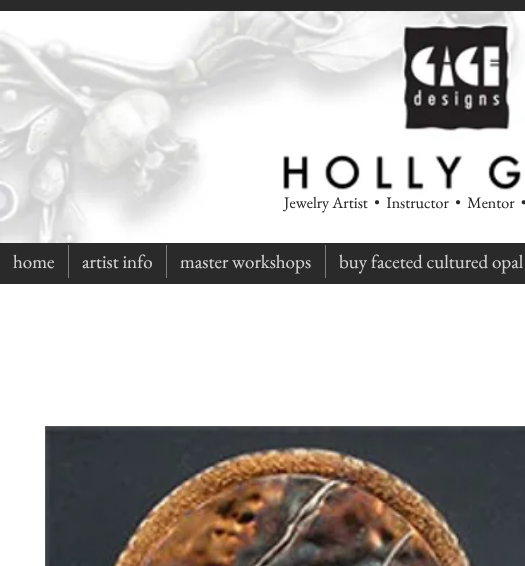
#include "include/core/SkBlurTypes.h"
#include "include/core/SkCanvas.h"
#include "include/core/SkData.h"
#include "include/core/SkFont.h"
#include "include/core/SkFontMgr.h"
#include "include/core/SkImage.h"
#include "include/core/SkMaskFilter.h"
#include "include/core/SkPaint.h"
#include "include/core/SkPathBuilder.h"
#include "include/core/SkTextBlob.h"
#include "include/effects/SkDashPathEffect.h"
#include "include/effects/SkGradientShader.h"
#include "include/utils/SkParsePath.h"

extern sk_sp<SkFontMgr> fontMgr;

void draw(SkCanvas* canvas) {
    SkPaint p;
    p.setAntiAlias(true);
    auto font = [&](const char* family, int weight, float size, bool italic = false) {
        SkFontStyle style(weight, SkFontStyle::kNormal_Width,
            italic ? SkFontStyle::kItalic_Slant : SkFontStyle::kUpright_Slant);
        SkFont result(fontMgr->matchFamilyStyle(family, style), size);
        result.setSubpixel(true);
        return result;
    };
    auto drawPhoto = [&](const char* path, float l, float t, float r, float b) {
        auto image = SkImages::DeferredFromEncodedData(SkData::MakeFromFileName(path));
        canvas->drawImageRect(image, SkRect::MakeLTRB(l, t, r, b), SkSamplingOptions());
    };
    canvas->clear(0xFF2A2A2A);
    drawPhoto("media/1.png", 0, 11, 525, 243);
    auto font1 = font("EB Garamond", 400, 16);
    p.setColor(0xFF2A2A2A);
    canvas->drawString("Jewelry Artist  •  Instructor  •  Mentor  •", 284, 208, font1, p);
    auto font2 = font("EB Garamond", 400, 19);
    p.setColor(0xFFD4D4D4);
    canvas->drawString("home", 13, 268, font2, p);
    p.setColor(0xFF7F7F7F);
    canvas->drawRect(SkRect::MakeLTRB(68, 245, 69, 278), p);
    p.setColor(0xFFD4D4D4);
    canvas->drawString("artist info", 82, 268, font2, p);
    p.setColor(0xFF7F7F7F);
    canvas->drawRect(SkRect::MakeLTRB(166, 245, 167, 278), p);
    p.setColor(0xFFD4D4D4);
    canvas->drawString("master workshops", 180, 268, font2, p);
    p.setColor(0xFF7F7F7F);
    canvas->drawRect(SkRect::MakeLTRB(325, 245, 326, 278), p);
    p.setColor(0xFFD4D4D4);
    canvas->drawString("buy faceted cultured opal", 339, 268, font2, p);
    p.setColor(0xFFFFFFFF);
    canvas->drawRect(SkRect::MakeLTRB(0, 284, 525, 566), p);
    p.setStyle(SkPaint::kStroke_Style);
    p.setStrokeWidth(1);
    p.setColor(0xFF545454);
    canvas->drawRect(SkRect::MakeLTRB(45.5f, 426.5f, 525.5f, 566.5f), p);
    drawPhoto("media/2.png", 46, 427, 525, 566);
}
